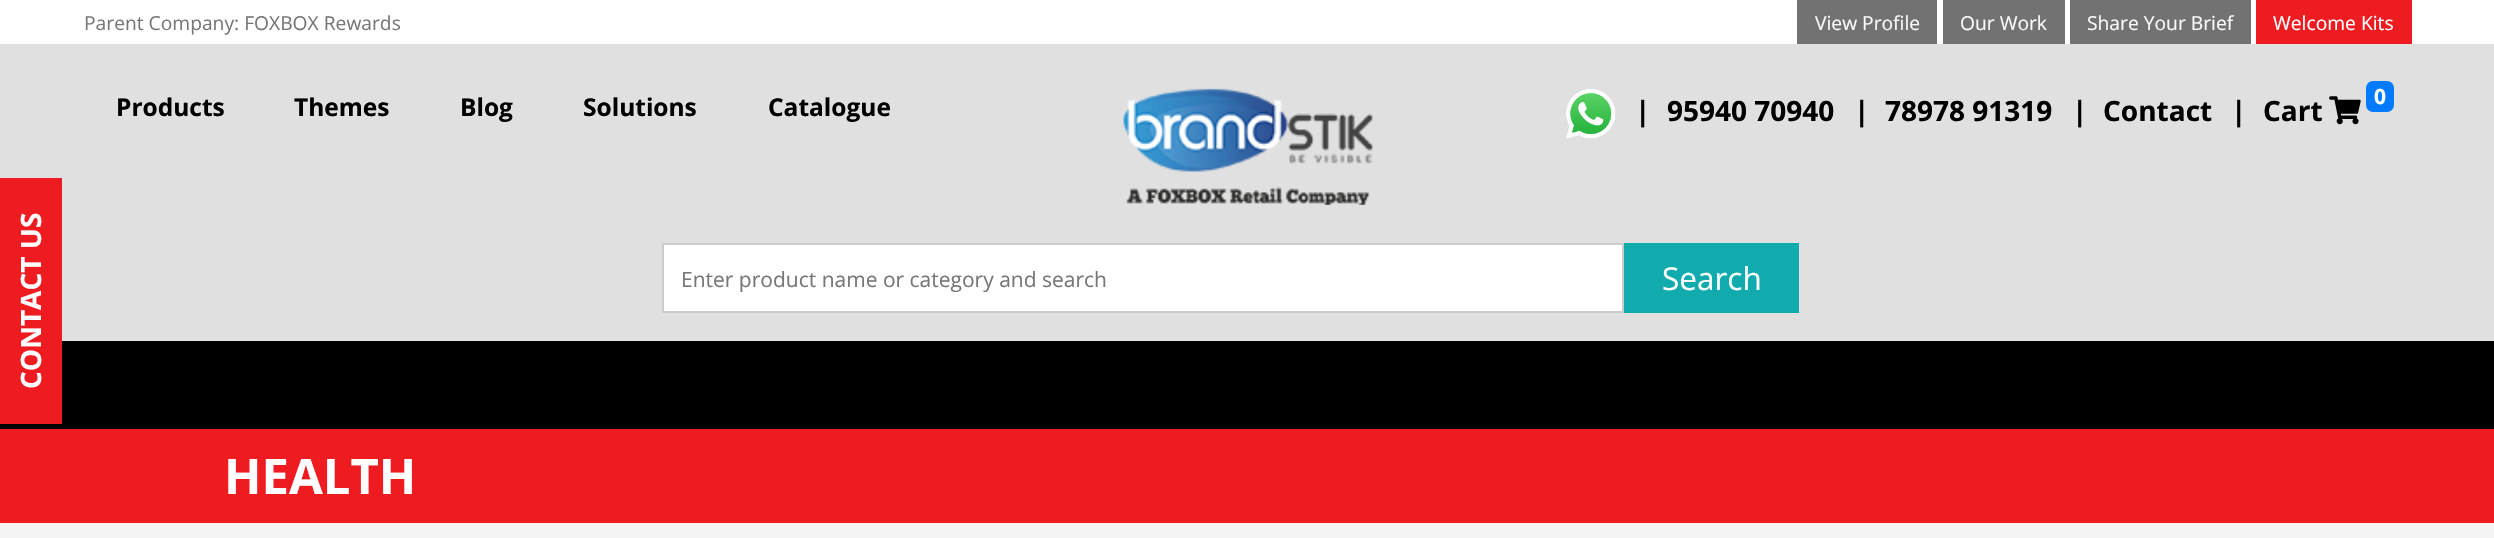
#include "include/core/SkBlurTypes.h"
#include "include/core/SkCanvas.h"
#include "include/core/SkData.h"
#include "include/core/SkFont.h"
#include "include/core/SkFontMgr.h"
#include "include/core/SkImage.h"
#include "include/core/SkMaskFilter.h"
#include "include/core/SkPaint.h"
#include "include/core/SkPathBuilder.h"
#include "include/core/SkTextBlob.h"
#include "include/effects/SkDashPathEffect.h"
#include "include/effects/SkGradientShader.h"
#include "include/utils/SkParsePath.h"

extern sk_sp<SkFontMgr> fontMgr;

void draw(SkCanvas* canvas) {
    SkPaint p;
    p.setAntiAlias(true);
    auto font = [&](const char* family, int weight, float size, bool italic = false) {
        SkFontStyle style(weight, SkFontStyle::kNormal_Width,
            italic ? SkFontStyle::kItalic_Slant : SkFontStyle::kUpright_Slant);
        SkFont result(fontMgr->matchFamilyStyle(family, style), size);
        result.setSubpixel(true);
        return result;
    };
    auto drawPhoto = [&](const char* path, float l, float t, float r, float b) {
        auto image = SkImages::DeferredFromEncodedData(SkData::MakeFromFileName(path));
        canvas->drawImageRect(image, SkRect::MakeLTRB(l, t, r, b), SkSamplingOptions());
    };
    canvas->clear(0xFFE0E0E0);
    p.setColor(0xFF000000);
    canvas->drawRect(SkRect::MakeLTRB(0, 341, 2494, 429), p);
    p.setColor(0xFFEE1C21);
    canvas->drawRect(SkRect::MakeLTRB(0, 178, 62, 424), p);
    auto font1 = font("Open Sans", 700, 28);
    p.setColor(0xFFFFFFFF);
    canvas->save();
    canvas->rotate(-90, 41, 389);
    canvas->drawString("CONTACT US", 41, 389, font1, p);
    canvas->restore();
    canvas->drawRect(SkRect::MakeLTRB(0, 0, 2494, 44), p);
    auto font2 = font("Open Sans", 400, 19.25f);
    p.setColor(0xFF777777);
    canvas->drawString("Parent Company: FOXBOX Rewards", 84, 30, font2, p);
    p.setColor(0xFF727272);
    canvas->drawRect(SkRect::MakeLTRB(1797, 0, 1937, 44), p);
    p.setColor(0xFFF8F9FA);
    canvas->drawString("View Profile", 1815, 30, font2, p);
    p.setColor(0xFF727272);
    canvas->drawRect(SkRect::MakeLTRB(1943, 0, 2065, 44), p);
    p.setColor(0xFFF8F9FA);
    canvas->drawString("Our Work", 1960, 30, font2, p);
    p.setColor(0xFF727272);
    canvas->drawRect(SkRect::MakeLTRB(2070, 0, 2251, 44), p);
    p.setColor(0xFFF8F9FA);
    canvas->drawString("Share Your Brief", 2087, 30, font2, p);
    p.setColor(0xFFEE1C21);
    canvas->drawRect(SkRect::MakeLTRB(2256, 0, 2412, 44), p);
    p.setColor(0xFFFFFFFF);
    canvas->drawString("Welcome Kits", 2273, 30, font2, p);
    auto font3 = font("Open Sans", 700, 24.5f);
    p.setColor(0xFF000000);
    {
        const struct { const char* s; float x, y; } items[] = {
            {"Products", 116, 116},
            {"Themes", 294, 116},
            {"Blog", 460, 116},
            {"Solutions", 583, 116},
            {"Catalogue", 768, 116},
        };
        for (auto [s, x, y] : items) {
            canvas->drawString(s, x, y, font3, p);
        }
    }
    drawPhoto("media/1.png", 1123, 88, 1373, 205);
    drawPhoto("media/2.png", 1566, 89, 1616, 139);
    {
        const struct { const char* s; float x, y; } items[] = {
            {"|", 1635, 121},
            {"95940 70940", 1667, 121},
            {"|", 1854, 121},
            {"78978 91319", 1885, 121},
            {"|", 2072, 121},
            {"Contact", 2103, 121},
            {"|", 2231, 121},
            {"Cart", 2263, 121},
        };
        for (auto [s, x, y] : items) {
            canvas->drawString(s, x, y, font1, p);
        }
    }
    drawPhoto("media/3.png", 2329, 96, 2361, 125);
    p.setColor(0xFF007BFF);
    canvas->drawRoundRect(SkRect::MakeLTRB(2366, 81, 2394, 112), 7, 7, p);
    auto font4 = font("Open Sans", 700, 21);
    p.setColor(0xFFFFFFFF);
    canvas->drawString("0", 2374, 104, font4, p);
    canvas->drawRect(SkRect::MakeLTRB(663, 244, 1623, 312), p);
    p.setStyle(SkPaint::kStroke_Style);
    p.setStrokeWidth(2);
    p.setColor(0xFFCCCCCC);
    canvas->drawRect(SkRect::MakeLTRB(663, 244, 1623, 312), p);
    auto font5 = font("Open Sans", 400, 21);
    p.setStyle(SkPaint::kFill_Style);
    p.setColor(0xFF777777);
    canvas->drawString("Enter product name or category and search", 681, 287, font5, p);
    p.setColor(0xFF11ABAD);
    canvas->drawRect(SkRect::MakeLTRB(1624, 243, 1799, 313), p);
    auto font6 = font("Open Sans", 400, 31.5f);
    p.setColor(0xFFFFFFFF);
    canvas->drawString("Search", 1662, 290, font6, p);
    p.setColor(0xFFF4F4F4);
    canvas->drawRect(SkRect::MakeLTRB(0, 523, 2494, 538), p);
    p.setColor(0xFFEE1C21);
    canvas->drawRect(SkRect::MakeLTRB(0, 429, 2494, 523), p);
    auto font7 = font("Open Sans", 700, 49);
    p.setColor(0xFFFFFFFF);
    canvas->drawString("HEALTH", 224, 494, font7, p);
}
